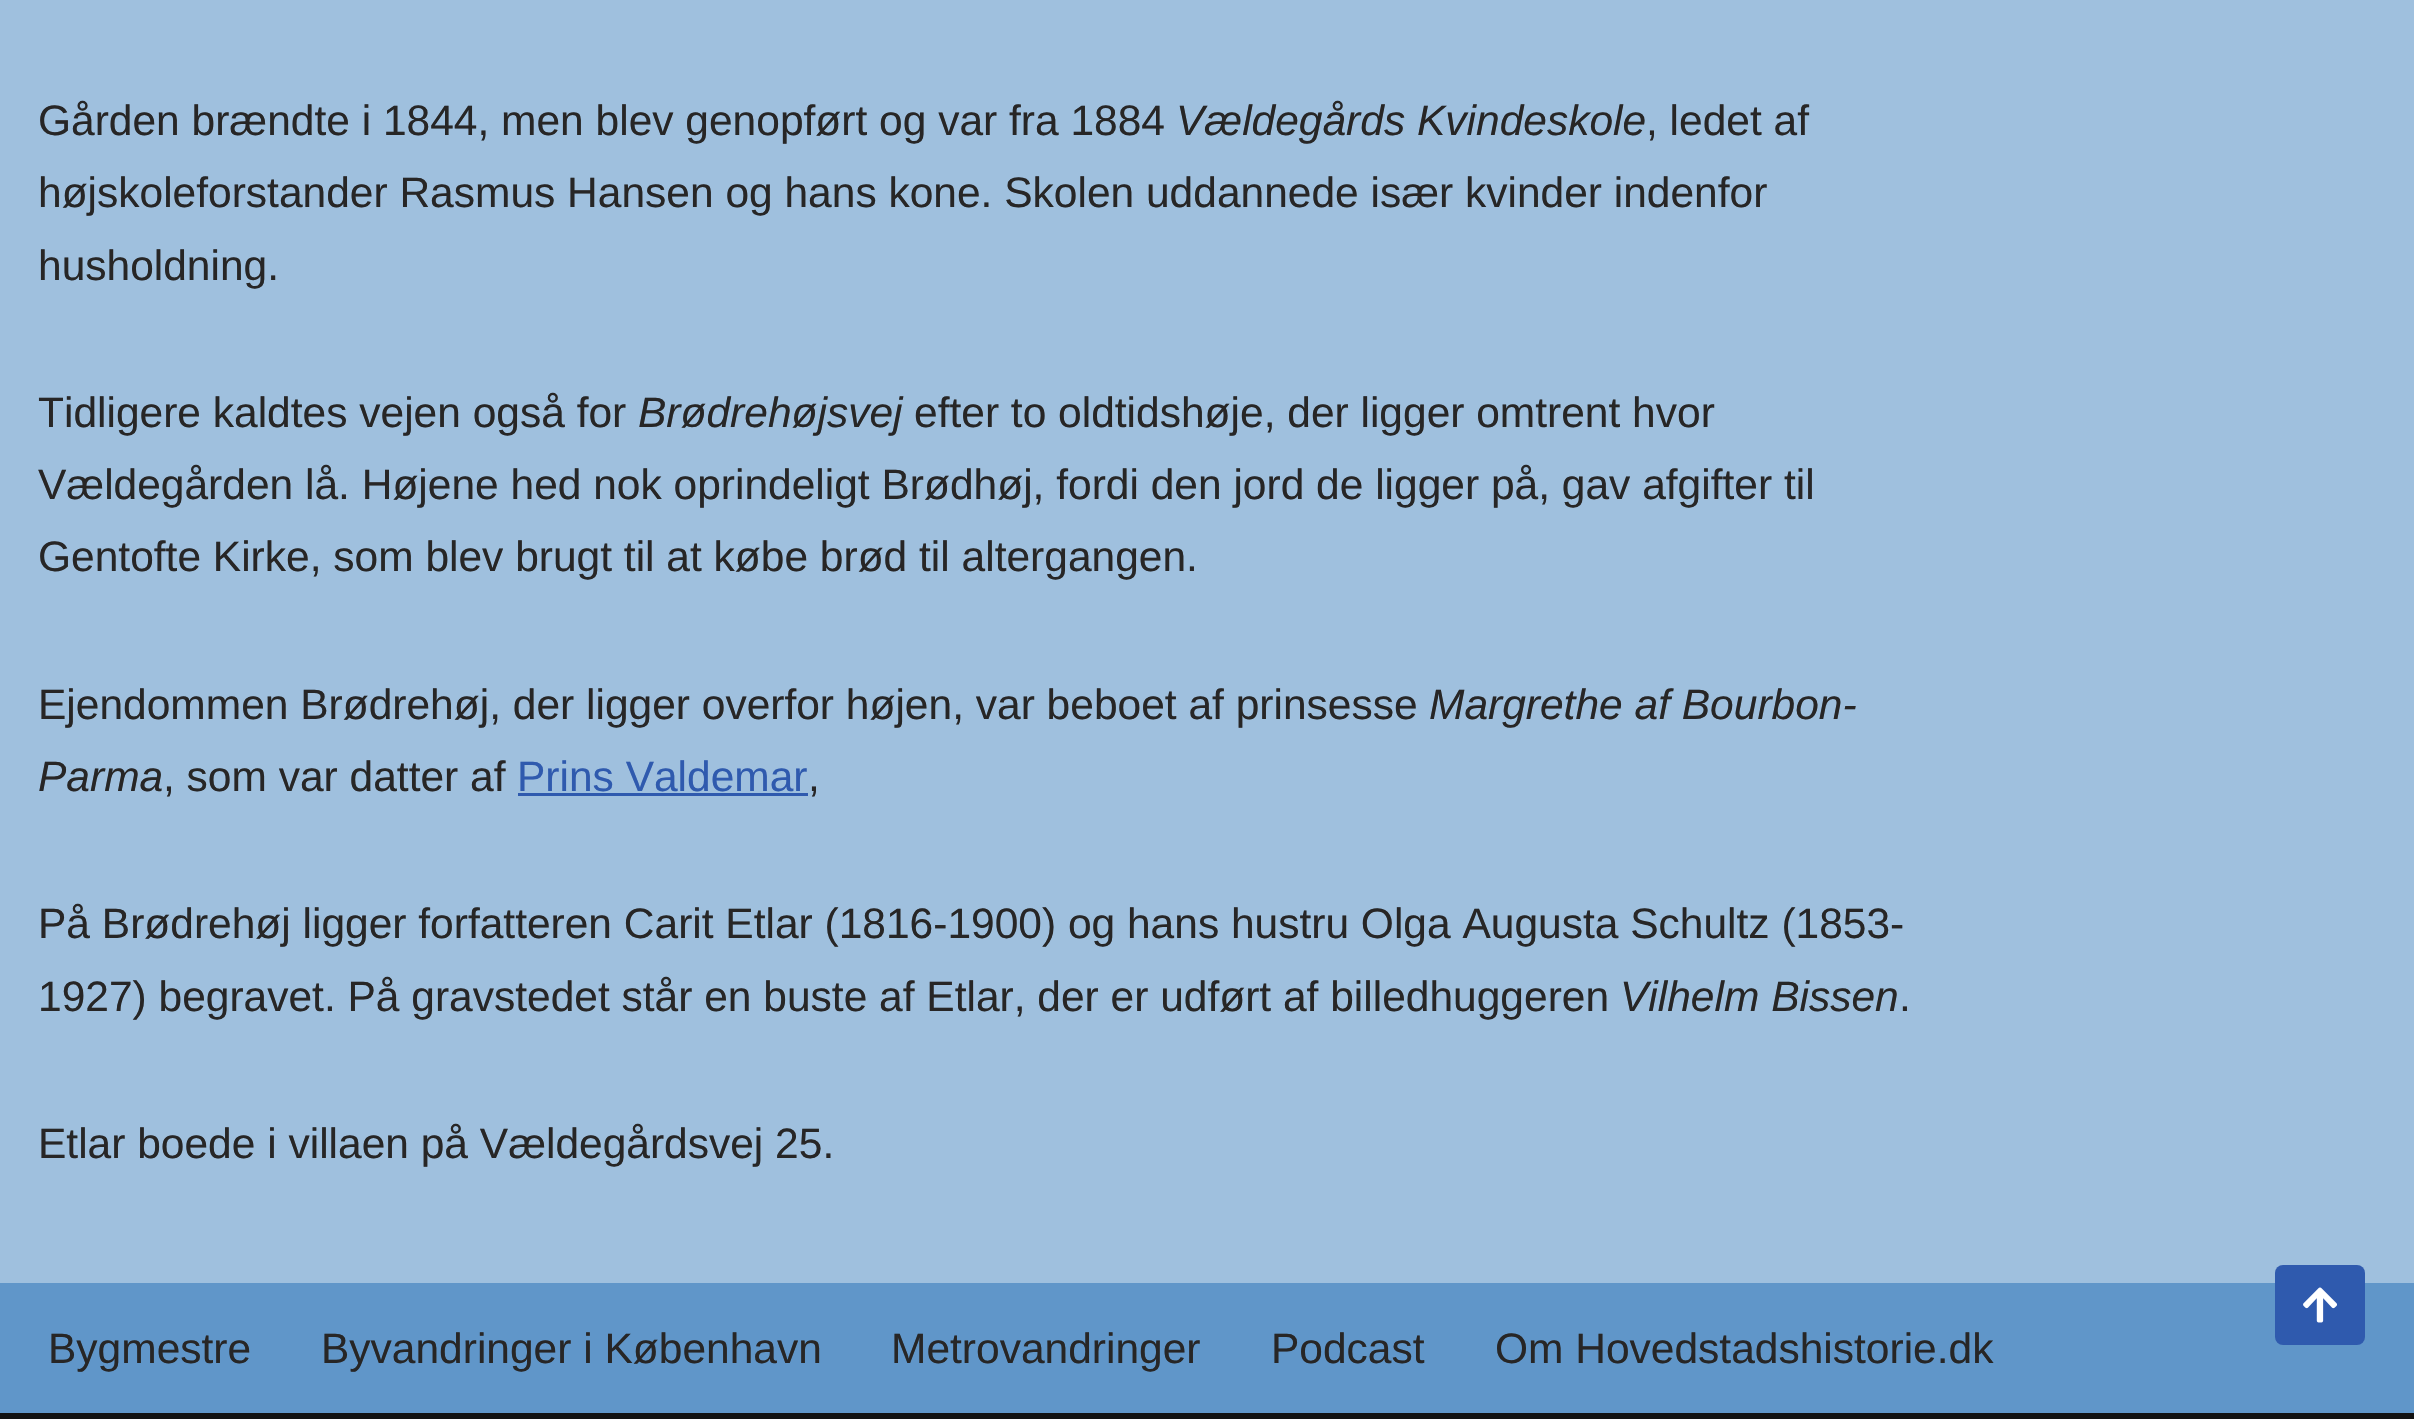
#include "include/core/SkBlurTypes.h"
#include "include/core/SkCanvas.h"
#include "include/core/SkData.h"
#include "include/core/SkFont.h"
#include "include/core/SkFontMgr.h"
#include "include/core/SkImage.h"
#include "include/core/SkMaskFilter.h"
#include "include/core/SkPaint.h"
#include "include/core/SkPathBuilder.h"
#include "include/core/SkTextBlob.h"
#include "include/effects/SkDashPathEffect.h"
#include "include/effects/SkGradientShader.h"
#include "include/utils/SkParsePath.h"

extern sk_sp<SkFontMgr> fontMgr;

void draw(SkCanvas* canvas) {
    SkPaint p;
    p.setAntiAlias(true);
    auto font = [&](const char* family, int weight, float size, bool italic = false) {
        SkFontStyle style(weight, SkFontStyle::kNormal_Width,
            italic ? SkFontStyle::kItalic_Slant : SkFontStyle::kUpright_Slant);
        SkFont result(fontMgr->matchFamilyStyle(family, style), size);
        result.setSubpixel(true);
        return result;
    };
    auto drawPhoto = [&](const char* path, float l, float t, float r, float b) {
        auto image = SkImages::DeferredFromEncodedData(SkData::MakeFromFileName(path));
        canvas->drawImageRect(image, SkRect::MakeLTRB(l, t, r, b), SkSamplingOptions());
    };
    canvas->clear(0xFF9FC0DE);
    auto font1 = font("Liberation Sans", 400, 42.5f);
    p.setColor(0xFF272626);
    canvas->drawString("Gården brændte i 1844, men blev genopført og var fra 1884", 38, 135, font1, p);
    auto font2 = font("Liberation Sans", 400, 42.5f, true);
    canvas->drawString("Vældegårds Kvindeskole", 1176, 135, font2, p);
    {
        const struct { const char* s; float x, y; } items[] = {
            {", ledet af", 1646, 135},
            {"højskoleforstander Rasmus Hansen og hans kone. Skolen uddannede især kvinder indenfor", 38, 207},
            {"husholdning.", 38, 280},
            {"Tidligere kaldtes vejen også for", 38, 427},
        };
        for (auto [s, x, y] : items) {
            canvas->drawString(s, x, y, font1, p);
        }
    }
    canvas->drawString("Brødrehøjsvej", 638, 427, font2, p);
    {
        const struct { const char* s; float x, y; } items[] = {
            {"efter to oldtidshøje, der ligger omtrent hvor", 914, 427},
            {"Vældegården lå. Højene hed nok oprindeligt Brødhøj, fordi den jord de ligger på, gav afgifter til", 38, 499},
            {"Gentofte Kirke, som blev brugt til at købe brød til altergangen.", 38, 571},
            {"Ejendommen Brødrehøj, der ligger overfor højen, var beboet af prinsesse", 38, 719},
        };
        for (auto [s, x, y] : items) {
            canvas->drawString(s, x, y, font1, p);
        }
    }
    canvas->drawString("Margrethe af Bourbon-", 1429, 719, font2, p);
    canvas->drawString("Parma", 38, 791, font2, p);
    canvas->drawString(", som var datter af", 163, 791, font1, p);
    p.setColor(0xFF2F5AAE);
    canvas->drawString("Prins Valdemar", 517, 791, font1, p);
    canvas->drawRect(SkRect::MakeLTRB(518, 793, 808, 796), p);
    p.setColor(0xFF272626);
    {
        const struct { const char* s; float x, y; } items[] = {
            {",", 808, 791},
            {"På Brødrehøj ligger forfatteren Carit Etlar (1816-1900) og hans hustru Olga Augusta Schultz (1853-", 38, 938},
            {"1927) begravet. På gravstedet står en buste af Etlar, der er udført af billedhuggeren", 38, 1011},
        };
        for (auto [s, x, y] : items) {
            canvas->drawString(s, x, y, font1, p);
        }
    }
    canvas->drawString("Vilhelm Bissen", 1620, 1011, font2, p);
    canvas->drawString(".", 1899, 1011, font1, p);
    canvas->drawString("Etlar boede i villaen på Vældegårdsvej 25.", 38, 1158, font1, p);
    p.setColor(0xFF6096C9);
    canvas->drawRect(SkRect::MakeLTRB(0, 1283, 2414, 1413), p);
    p.setColor(0xFF2F5AAE);
    canvas->drawRoundRect(SkRect::MakeLTRB(2275, 1265, 2365, 1345), 8, 8, p);
    drawPhoto("media/1.png", 2303, 1287, 2337, 1323);
    p.setColor(0xFF272626);
    {
        const struct { const char* s; float x, y; } items[] = {
            {"Bygmestre", 48, 1363},
            {"Byvandringer i København", 321, 1363},
            {"Metrovandringer", 891, 1363},
            {"Podcast", 1271, 1363},
            {"Om Hovedstadshistorie.dk", 1495, 1363},
        };
        for (auto [s, x, y] : items) {
            canvas->drawString(s, x, y, font1, p);
        }
    }
    p.setColor(0xFF121212);
    canvas->drawRect(SkRect::MakeLTRB(0, 1413, 2414, 1419), p);
}
